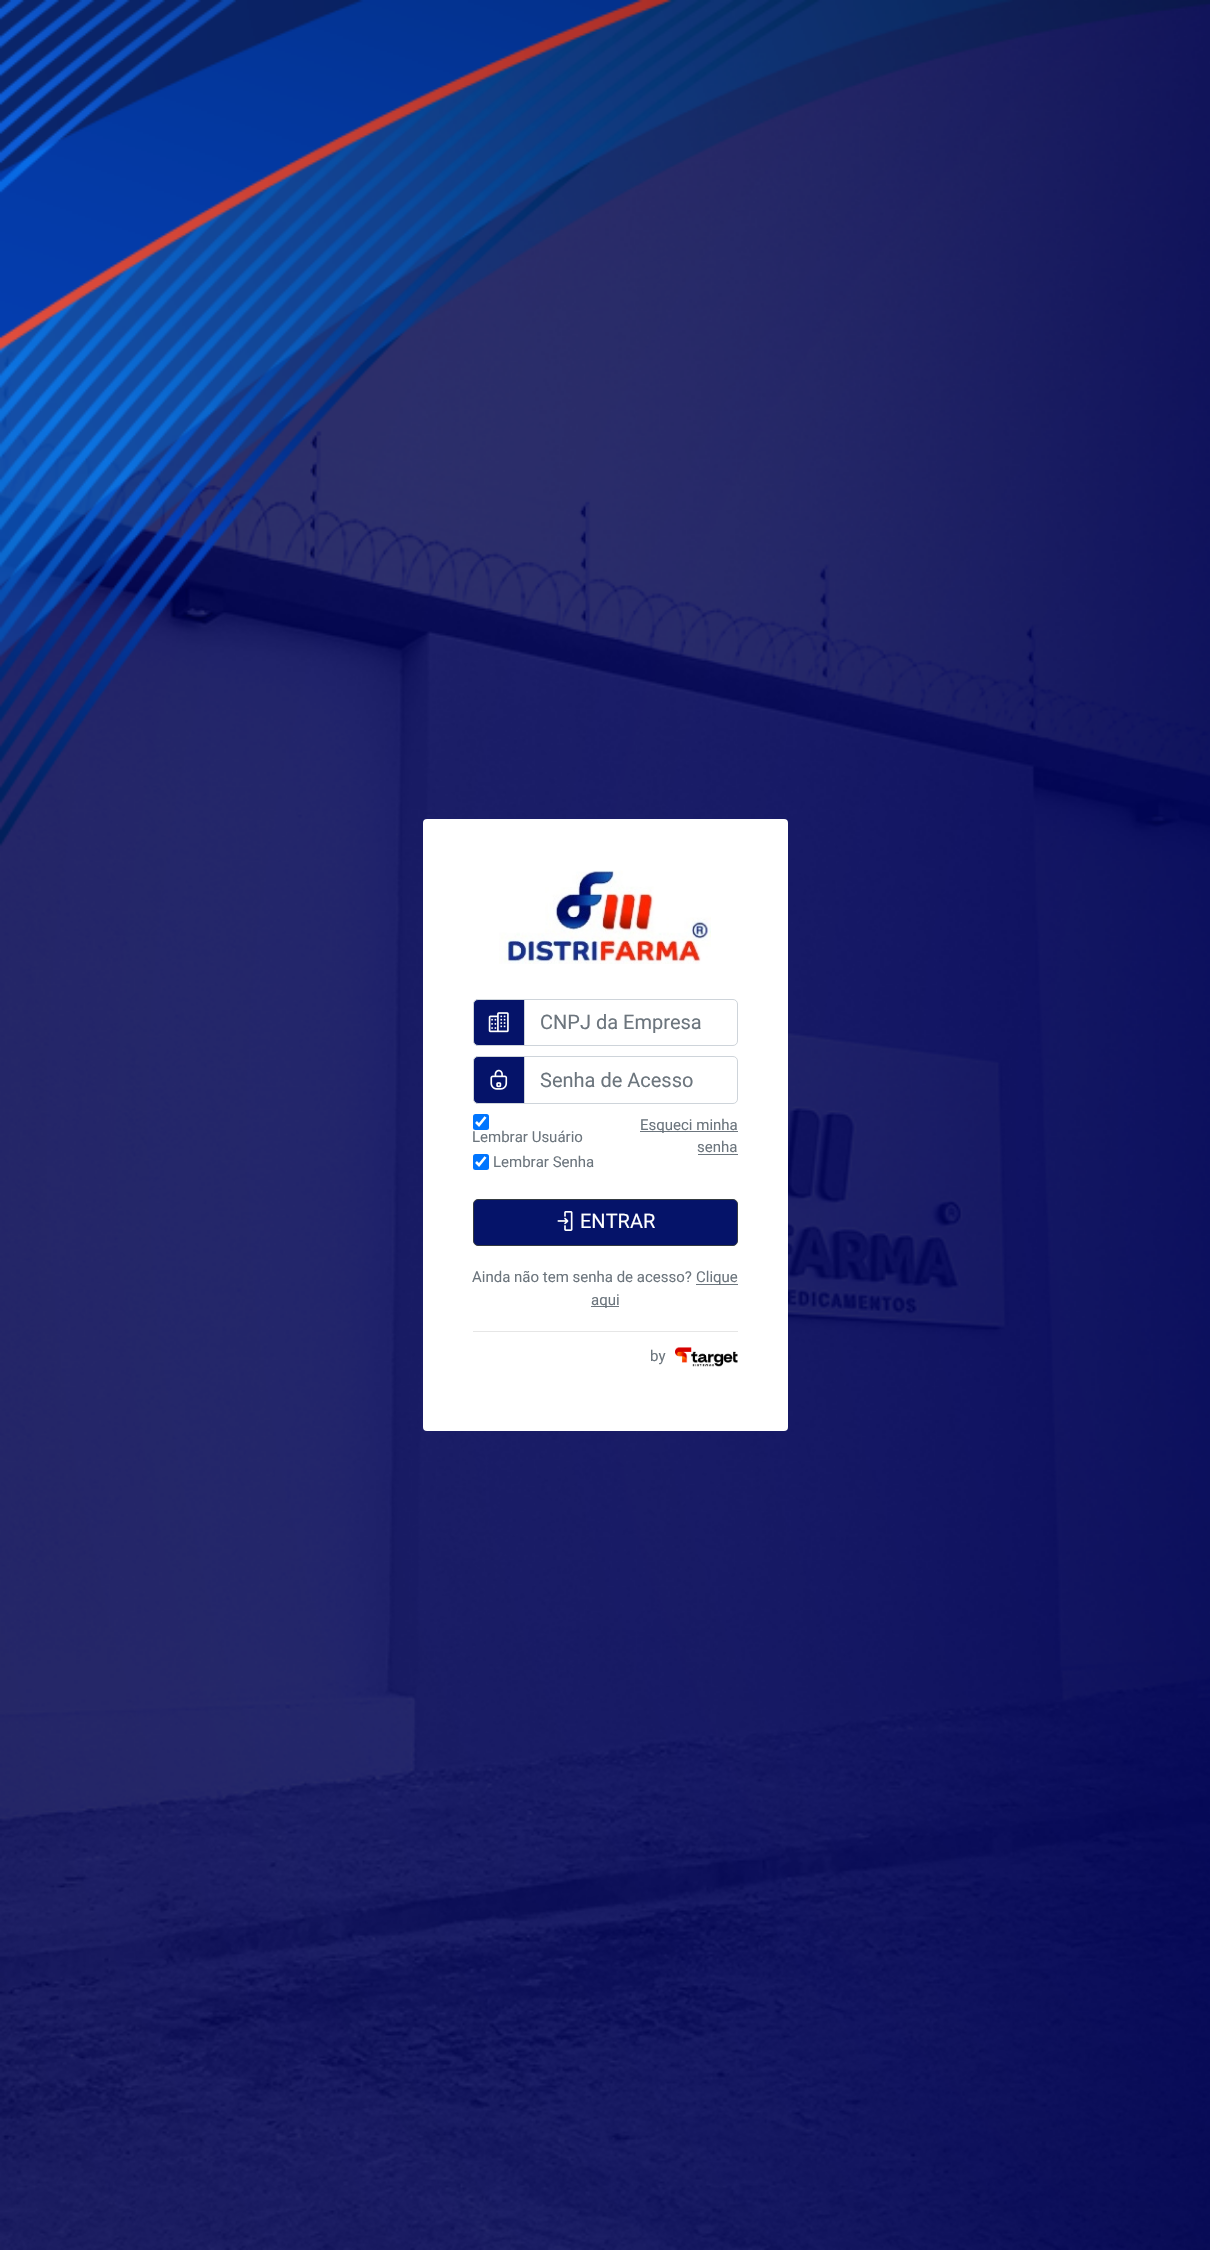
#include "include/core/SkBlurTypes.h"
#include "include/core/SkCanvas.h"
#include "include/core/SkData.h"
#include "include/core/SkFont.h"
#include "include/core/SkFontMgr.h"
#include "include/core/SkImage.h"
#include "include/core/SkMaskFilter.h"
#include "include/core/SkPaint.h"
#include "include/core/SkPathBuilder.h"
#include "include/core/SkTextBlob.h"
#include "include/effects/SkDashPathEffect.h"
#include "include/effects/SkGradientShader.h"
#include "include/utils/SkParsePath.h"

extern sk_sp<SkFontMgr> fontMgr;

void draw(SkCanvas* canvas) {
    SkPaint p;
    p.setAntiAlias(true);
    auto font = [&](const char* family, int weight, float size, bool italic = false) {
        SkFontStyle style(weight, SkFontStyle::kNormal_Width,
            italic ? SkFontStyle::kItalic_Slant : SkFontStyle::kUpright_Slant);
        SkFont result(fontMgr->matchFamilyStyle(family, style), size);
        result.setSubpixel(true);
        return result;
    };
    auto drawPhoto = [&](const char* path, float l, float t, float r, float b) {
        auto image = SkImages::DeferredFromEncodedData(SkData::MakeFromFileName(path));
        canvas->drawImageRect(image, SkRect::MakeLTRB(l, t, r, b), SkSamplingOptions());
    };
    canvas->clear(0xFFFFFFFF);
    drawPhoto("media/1.png", 0, 0, 1210, 2250);
    p.setColor(0xFFFFFFFF);
    canvas->drawRoundRect(SkRect::MakeLTRB(423, 819, 788, 1431), 4, 4, p);
    drawPhoto("media/2.png", 499, 870, 711, 964);
    p.setColor(0xFF051369);
    canvas->drawPath(SkPathBuilder().moveTo(478, 999.5f).lineTo(524.5f, 999.5f).lineTo(524.5f, 1045.5f).lineTo(478, 1045.5f).cubicTo(475.5f, 1045.5f, 473.5f, 1043.5f, 473.5f, 1041).lineTo(473.5f, 1004).cubicTo(473.5f, 1001.5f, 475.5f, 999.5f, 478, 999.5f).close().detach(), p);
    p.setStyle(SkPaint::kStroke_Style);
    p.setStrokeWidth(1);
    p.setColor(0xFFCED4DA);
    canvas->drawPath(SkPathBuilder().moveTo(478, 999.5f).lineTo(524.5f, 999.5f).lineTo(524.5f, 1045.5f).lineTo(478, 1045.5f).cubicTo(475.5f, 1045.5f, 473.5f, 1043.5f, 473.5f, 1041).lineTo(473.5f, 1004).cubicTo(473.5f, 1001.5f, 475.5f, 999.5f, 478, 999.5f).close().detach(), p);
    drawPhoto("media/3.png", 488, 1012, 509, 1033);
    canvas->drawPath(SkPathBuilder().moveTo(524.5f, 999.5f).lineTo(733, 999.5f).cubicTo(735.5f, 999.5f, 737.5f, 1001.5f, 737.5f, 1004).lineTo(737.5f, 1041).cubicTo(737.5f, 1043.5f, 735.5f, 1045.5f, 733, 1045.5f).lineTo(524.5f, 1045.5f).close().detach(), p);
    auto font1 = font("Roboto", 400, 20);
    p.setStyle(SkPaint::kFill_Style);
    p.setColor(0xFF6C757D);
    canvas->drawString("CNPJ da Empresa", 540, 1029, font1, p);
    p.setColor(0xFF051369);
    canvas->drawPath(SkPathBuilder().moveTo(478, 1056.5f).lineTo(524.5f, 1056.5f).lineTo(524.5f, 1103.5f).lineTo(478, 1103.5f).cubicTo(475.5f, 1103.5f, 473.5f, 1101.5f, 473.5f, 1099).lineTo(473.5f, 1061).cubicTo(473.5f, 1058.5f, 475.5f, 1056.5f, 478, 1056.5f).close().detach(), p);
    p.setStyle(SkPaint::kStroke_Style);
    p.setColor(0xFFCED4DA);
    canvas->drawPath(SkPathBuilder().moveTo(478, 1056.5f).lineTo(524.5f, 1056.5f).lineTo(524.5f, 1103.5f).lineTo(478, 1103.5f).cubicTo(475.5f, 1103.5f, 473.5f, 1101.5f, 473.5f, 1099).lineTo(473.5f, 1061).cubicTo(473.5f, 1058.5f, 475.5f, 1056.5f, 478, 1056.5f).close().detach(), p);
    drawPhoto("media/4.png", 490, 1069, 508, 1090);
    canvas->drawPath(SkPathBuilder().moveTo(524.5f, 1056.5f).lineTo(733, 1056.5f).cubicTo(735.5f, 1056.5f, 737.5f, 1058.5f, 737.5f, 1061).lineTo(737.5f, 1099).cubicTo(737.5f, 1101.5f, 735.5f, 1103.5f, 733, 1103.5f).lineTo(524.5f, 1103.5f).close().detach(), p);
    p.setStyle(SkPaint::kFill_Style);
    p.setColor(0xFF6C757D);
    canvas->drawString("Senha de Acesso", 540, 1087, font1, p);
    p.setColor(0xFF0075FF);
    canvas->drawRoundRect(SkRect::MakeLTRB(473, 1114, 489, 1130), 2.5f, 2.5f, p);
    p.setStyle(SkPaint::kStroke_Style);
    p.setStrokeWidth(2.6f);
    p.setColor(0xFFFFFFFF);
    canvas->drawPath(SkPathBuilder().moveTo(476, 1122).lineTo(479, 1125).lineTo(485.5f, 1117).detach(), p);
    auto font2 = font("Roboto", 400, 15);
    p.setStyle(SkPaint::kFill_Style);
    p.setColor(0xFF6C757D);
    canvas->drawString("Lembrar Usuário", 472, 1142, font2, p);
    p.setColor(0xFF0075FF);
    canvas->drawRoundRect(SkRect::MakeLTRB(473, 1154, 489, 1170), 2.5f, 2.5f, p);
    p.setStyle(SkPaint::kStroke_Style);
    p.setColor(0xFFFFFFFF);
    canvas->drawPath(SkPathBuilder().moveTo(476, 1162).lineTo(479, 1165).lineTo(485.5f, 1157).detach(), p);
    p.setStyle(SkPaint::kFill_Style);
    p.setColor(0xFF6C757D);
    canvas->drawString("Lembrar Senha", 493, 1167, font2, p);
    canvas->drawRect(SkRect::MakeLTRB(640, 1131, 738, 1132), p);
    canvas->drawString("Esqueci minha", 640, 1130, font2, p);
    canvas->drawString("senha", 697, 1152, font2, p);
    canvas->drawRect(SkRect::MakeLTRB(698, 1154, 738, 1155), p);
    p.setColor(0xFF051369);
    canvas->drawRoundRect(SkRect::MakeLTRB(473.5f, 1199.5f, 737.5f, 1245.5f), 4.5f, 4.5f, p);
    p.setStyle(SkPaint::kStroke_Style);
    p.setStrokeWidth(1);
    p.setColor(0xFF343A40);
    canvas->drawRoundRect(SkRect::MakeLTRB(473.5f, 1199.5f, 737.5f, 1245.5f), 4.5f, 4.5f, p);
    drawPhoto("media/5.png", 557, 1211, 573, 1231);
    p.setStyle(SkPaint::kFill_Style);
    p.setColor(0xFFFFFFFF);
    canvas->drawString("ENTRAR", 580, 1228, font1, p);
    p.setColor(0xFF6C757D);
    canvas->drawString("Ainda não tem senha de acesso?", 472, 1282, font2, p);
    canvas->drawRect(SkRect::MakeLTRB(696, 1284, 738, 1285), p);
    canvas->drawString("Clique", 696, 1282, font2, p);
    canvas->drawRect(SkRect::MakeLTRB(591, 1306, 619, 1307), p);
    canvas->drawString("aqui", 591, 1305, font2, p);
    p.setColor(0xFFE6E6E6);
    canvas->drawRect(SkRect::MakeLTRB(473, 1331, 738, 1332), p);
    p.setColor(0xFF6C757D);
    canvas->drawString("by", 650, 1361, font2, p);
    drawPhoto("media/6.png", 675, 1347, 738, 1367);
}
